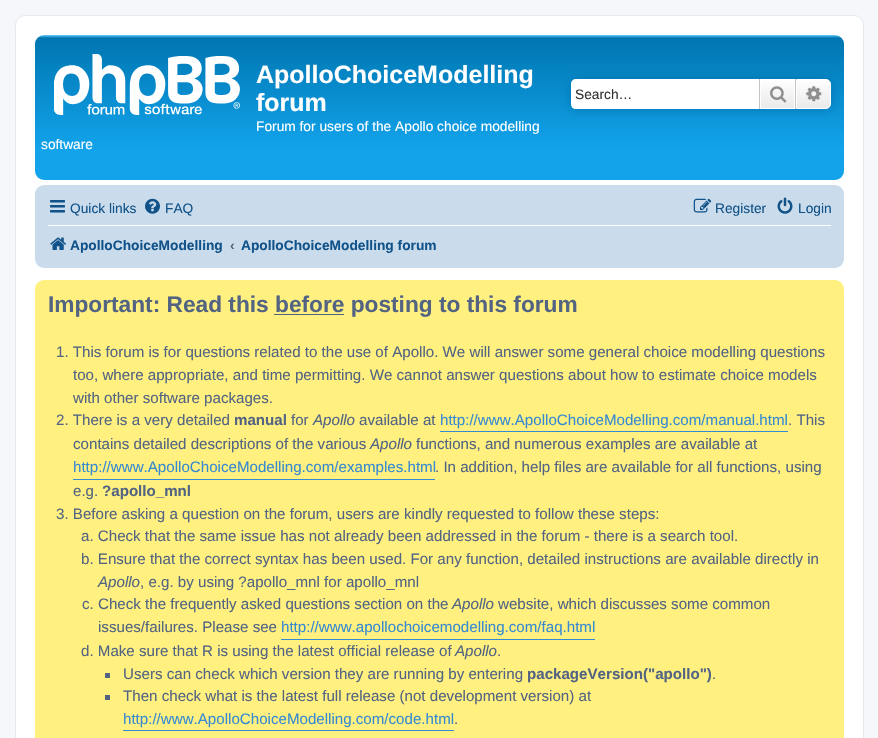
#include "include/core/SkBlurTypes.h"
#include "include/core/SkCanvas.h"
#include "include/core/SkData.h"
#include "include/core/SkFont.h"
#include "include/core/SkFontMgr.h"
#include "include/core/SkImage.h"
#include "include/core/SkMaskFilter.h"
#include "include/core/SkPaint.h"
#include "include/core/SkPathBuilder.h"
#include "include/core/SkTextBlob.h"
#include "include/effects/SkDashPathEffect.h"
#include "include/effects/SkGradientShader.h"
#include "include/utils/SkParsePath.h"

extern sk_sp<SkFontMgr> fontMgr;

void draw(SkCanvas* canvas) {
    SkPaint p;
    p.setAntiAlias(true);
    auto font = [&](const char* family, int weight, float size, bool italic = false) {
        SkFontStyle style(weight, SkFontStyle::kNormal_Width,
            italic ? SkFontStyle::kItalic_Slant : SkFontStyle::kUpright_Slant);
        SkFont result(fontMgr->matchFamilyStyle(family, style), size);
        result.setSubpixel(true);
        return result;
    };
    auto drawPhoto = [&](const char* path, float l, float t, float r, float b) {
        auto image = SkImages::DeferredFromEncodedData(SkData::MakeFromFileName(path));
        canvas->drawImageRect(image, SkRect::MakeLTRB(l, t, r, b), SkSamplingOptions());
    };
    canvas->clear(0xFFF5F7FA);
    p.setColor(0xFFFFFFFF);
    canvas->drawRoundRect(SkRect::MakeLTRB(15.5f, 15.5f, 863.5f, 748.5f), 9.5f, 9.5f, p);
    p.setStyle(SkPaint::kStroke_Style);
    p.setStrokeWidth(1);
    p.setColor(0xFFE6E9ED);
    canvas->drawRoundRect(SkRect::MakeLTRB(15.5f, 15.5f, 863.5f, 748.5f), 9.5f, 9.5f, p);
    p.setStyle(SkPaint::kFill_Style);
    {
        const SkColor colors[] = {0xFF6ACEFF, 0xFF0076B1, 0xFF12A3EB, 0xFF12A3EB};
        const float stops[] = {0, 0.02f, 0.79f, 1};
        const SkPoint ends[] = {{439, 35}, {439, 180}};
        p.setShader(SkGradientShader::MakeLinear(ends, colors, stops, 4, SkTileMode::kClamp));
        p.setAlpha(255);
    }
    canvas->drawRoundRect(SkRect::MakeLTRB(35, 35, 844, 180), 9, 9, p);
    drawPhoto("media/1.png", 54, 54, 240, 115);
    auto font1 = font("Liberation Sans", 700, 25);
    p.setShader(nullptr);
    p.setColor(0xFFFFFFFF);
    canvas->drawString("ApolloChoiceModelling", 256, 83, font1, p);
    canvas->drawString("forum", 256, 111, font1, p);
    auto font2 = font("Liberation Sans", 400, 13.75f);
    canvas->drawString("Forum for users of the Apollo choice modelling", 256, 131, font2, p);
    canvas->drawString("software", 41, 149, font2, p);
    p.setColor(0xFF0075B0);
    p.setMaskFilter(SkMaskFilter::MakeBlur(kNormal_SkBlurStyle, 6));
    canvas->drawRoundRect(SkRect::MakeLTRB(571, 79, 831, 109), 5, 5, p);
    p.setMaskFilter(nullptr);
    p.setColor(0xFFFFFFFF);
    canvas->drawPath(SkPathBuilder().moveTo(576, 79).lineTo(759, 79).lineTo(759, 109).lineTo(576, 109).cubicTo(573, 109, 571, 107, 571, 104).lineTo(571, 84).cubicTo(571, 81, 573, 79, 576, 79).close().detach(), p);
    p.setColor(0xFF333333);
    canvas->drawString("Search…", 575, 99, font2, p);
    {
        const SkColor colors[] = {0xFFFFFFFF, 0xFFE9E9E9};
        const float stops[] = {0, 1};
        const SkPoint ends[] = {{778, 79}, {778, 109}};
        p.setShader(SkGradientShader::MakeLinear(ends, colors, stops, 2, SkTileMode::kClamp));
        p.setAlpha(255);
    }
    canvas->drawRect(SkRect::MakeLTRB(761, 80, 794, 108), p);
    p.setStyle(SkPaint::kStroke_Style);
    p.setShader(nullptr);
    p.setColor(0xFFFFFFFF);
    canvas->drawRect(SkRect::MakeLTRB(760.5f, 79.5f, 794.5f, 108.5f), p);
    p.setStyle(SkPaint::kFill_Style);
    p.setColor(0xFFC7C3BF);
    canvas->drawRect(SkRect::MakeLTRB(795, 79, 796, 109), p);
    canvas->drawRect(SkRect::MakeLTRB(759, 79, 760, 109), p);
    drawPhoto("media/2.png", 770, 86, 787, 103);
    {
        const SkColor colors[] = {0xFFFFFFFF, 0xFFE9E9E9};
        const float stops[] = {0, 1};
        const SkPoint ends[] = {{814, 79}, {814, 109}};
        p.setShader(SkGradientShader::MakeLinear(ends, colors, stops, 2, SkTileMode::kClamp));
        p.setAlpha(255);
    }
    canvas->drawPath(SkPathBuilder().moveTo(796.5f, 79.5f).lineTo(826, 79.5f).cubicTo(828.5f, 79.5f, 830.5f, 81.5f, 830.5f, 84).lineTo(830.5f, 104).cubicTo(830.5f, 106.5f, 828.5f, 108.5f, 826, 108.5f).lineTo(796.5f, 108.5f).close().detach(), p);
    p.setStyle(SkPaint::kStroke_Style);
    p.setShader(nullptr);
    p.setColor(0xFFFFFFFF);
    canvas->drawPath(SkPathBuilder().moveTo(796.5f, 79.5f).lineTo(826, 79.5f).cubicTo(828.5f, 79.5f, 830.5f, 81.5f, 830.5f, 84).lineTo(830.5f, 104).cubicTo(830.5f, 106.5f, 828.5f, 108.5f, 826, 108.5f).lineTo(796.5f, 108.5f).close().detach(), p);
    drawPhoto("media/3.png", 806, 86, 822, 102);
    p.setStyle(SkPaint::kFill_Style);
    p.setColor(0xFFCADCEB);
    canvas->drawRoundRect(SkRect::MakeLTRB(35, 185, 844, 268), 9, 9, p);
    drawPhoto("media/4.png", 50, 200, 65, 213);
    p.setColor(0xFF105289);
    canvas->drawString("Quick links", 70, 213, font2, p);
    drawPhoto("media/5.png", 145, 198, 160, 214);
    canvas->drawString("FAQ", 165, 213, font2, p);
    drawPhoto("media/6.png", 693, 198, 712, 213);
    canvas->drawString("Register", 715, 213, font2, p);
    drawPhoto("media/7.png", 777, 197, 793, 214);
    canvas->drawString("Login", 798, 213, font2, p);
    p.setColor(0xFFFFFFFF);
    canvas->drawRect(SkRect::MakeLTRB(48, 225, 831, 226), p);
    drawPhoto("media/8.png", 50, 237, 66, 250);
    auto font3 = font("Liberation Sans", 700, 13.75f);
    p.setColor(0xFF105289);
    canvas->drawString("ApolloChoiceModelling", 70, 250, font3, p);
    p.setColor(0xFF536482);
    canvas->drawString("‹", 230, 250, font3, p);
    p.setColor(0xFF105289);
    canvas->drawString("ApolloChoiceModelling forum", 241, 250, font3, p);
    p.setColor(0xFFFFF080);
    canvas->drawRoundRect(SkRect::MakeLTRB(35, 280, 844, 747), 9, 9, p);
    auto font4 = font("Liberation Sans", 700, 22.7f);
    p.setColor(0xFF536482);
    canvas->drawString("Important: Read this before posting to this forum", 48, 312, font4, p);
    canvas->drawRect(SkRect::MakeLTRB(274, 314, 344, 315), p);
    auto font5 = font("Liberation Sans", 400, 15.12f);
    {
        const struct { const char* s; float x, y; } items[] = {
            {"1. This forum is for questions related to the use of Apollo. We will answer some general choice modelling questions", 56, 357},
            {"too, where appropriate, and time permitting. We cannot answer questions about how to estimate choice models", 73, 380},
            {"with other software packages.", 73, 403},
            {"2. There is a very detailed", 56, 425},
        };
        for (auto [s, x, y] : items) {
            canvas->drawString(s, x, y, font5, p);
        }
    }
    auto font6 = font("Liberation Sans", 700, 15.12f);
    canvas->drawString("manual", 234, 425, font6, p);
    canvas->drawString("for", 291, 425, font5, p);
    auto font7 = font("Liberation Sans", 400, 15.12f, true);
    canvas->drawString("Apollo", 313, 425, font7, p);
    canvas->drawString("available at", 359, 425, font5, p);
    p.setColor(0xFF368AD2);
    canvas->drawRect(SkRect::MakeLTRB(440, 431, 788, 432), p);
    canvas->drawString("http://www.ApolloChoiceModelling.com/manual.html", 440, 425, font5, p);
    p.setColor(0xFF536482);
    canvas->drawString(". This", 788, 425, font5, p);
    canvas->drawString("contains detailed descriptions of the various", 73, 449, font5, p);
    canvas->drawString("Apollo", 370, 449, font7, p);
    canvas->drawString("functions, and numerous examples are available at", 416, 449, font5, p);
    p.setColor(0xFF368AD2);
    canvas->drawRect(SkRect::MakeLTRB(73, 479, 435, 480), p);
    canvas->drawString("http://www.ApolloChoiceModelling.com/examples.html", 73, 472, font5, p);
    p.setColor(0xFF536482);
    canvas->drawString(". In addition, help files are available for all functions, using", 435, 472, font5, p);
    canvas->drawString("e.g.", 73, 496, font5, p);
    canvas->drawString("?apollo_mnl", 102, 496, font6, p);
    {
        const struct { const char* s; float x, y; } items[] = {
            {"3. Before asking a question on the forum, users are kindly requested to follow these steps:", 56, 519},
            {"a. Check that the same issue has not already been addressed in the forum - there is a search tool.", 81, 541},
            {"b. Ensure that the correct syntax has been used. For any function, detailed instructions are available directly in", 81, 564},
        };
        for (auto [s, x, y] : items) {
            canvas->drawString(s, x, y, font5, p);
        }
    }
    canvas->drawString("Apollo", 98, 587, font7, p);
    canvas->drawString(", e.g. by using ?apollo_mnl for apollo_mnl", 140, 587, font5, p);
    canvas->drawString("c. Check the frequently asked questions section on the", 82, 609, font5, p);
    canvas->drawString("Apollo", 452, 609, font7, p);
    canvas->drawString("website, which discusses some common", 498, 609, font5, p);
    canvas->drawString("issues/failures. Please see", 98, 632, font5, p);
    p.setColor(0xFF368AD2);
    canvas->drawRect(SkRect::MakeLTRB(281, 639, 595, 640), p);
    canvas->drawString("http://www.apollochoicemodelling.com/faq.html", 281, 632, font5, p);
    p.setColor(0xFF536482);
    canvas->drawString("d. Make sure that R is using the latest official release of", 81, 656, font5, p);
    canvas->drawString("Apollo", 455, 656, font7, p);
    canvas->drawString(".", 497, 656, font5, p);
    canvas->drawRect(SkRect::MakeLTRB(105, 673, 110, 678), p);
    canvas->drawString("Users can check which version they are running by entering", 123, 679, font5, p);
    canvas->drawString("packageVersion(\"apollo\")", 527, 679, font6, p);
    canvas->drawString(".", 712, 679, font5, p);
    canvas->drawRect(SkRect::MakeLTRB(105, 695, 110, 700), p);
    canvas->drawString("Then check what is the latest full release (not development version) at", 123, 701, font5, p);
    p.setColor(0xFF368AD2);
    canvas->drawRect(SkRect::MakeLTRB(123, 730, 454, 731), p);
    canvas->drawString("http://www.ApolloChoiceModelling.com/code.html", 123, 724, font5, p);
    p.setColor(0xFF536482);
    canvas->drawString(".", 454, 724, font5, p);
}
